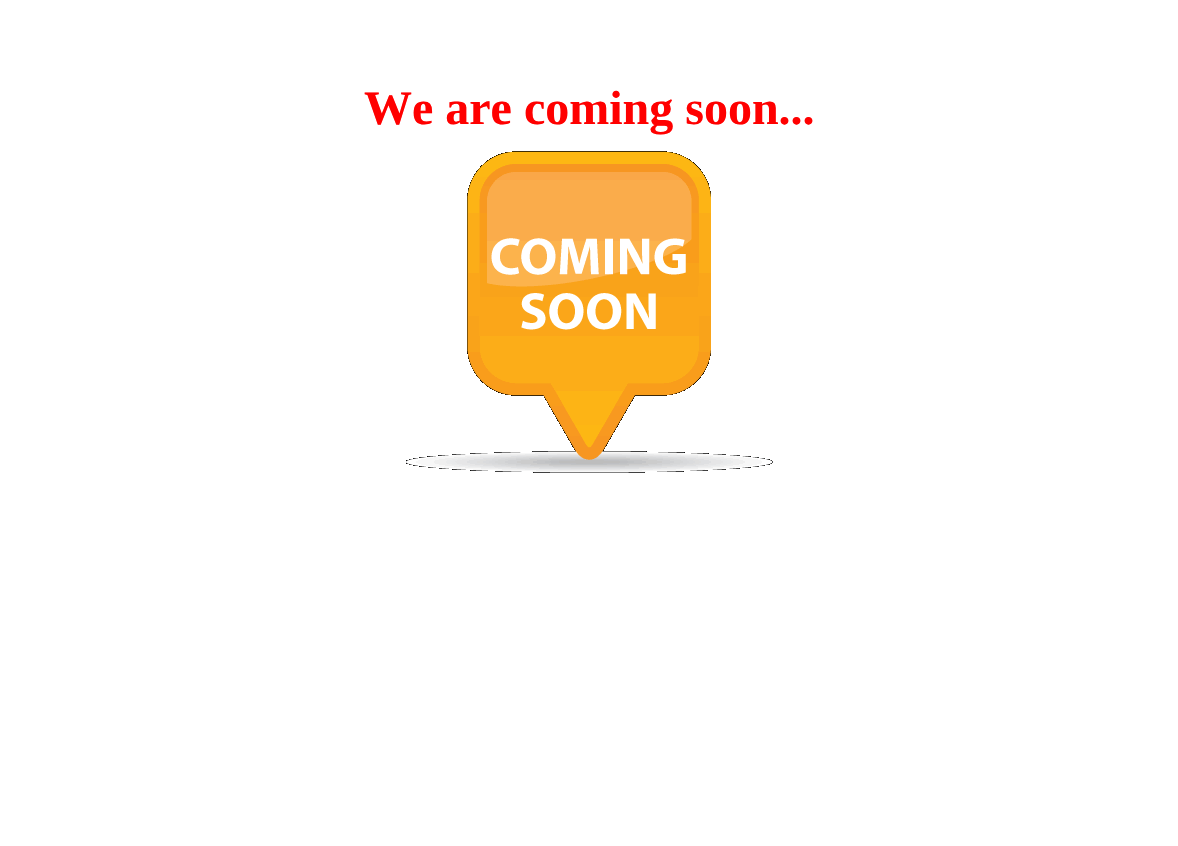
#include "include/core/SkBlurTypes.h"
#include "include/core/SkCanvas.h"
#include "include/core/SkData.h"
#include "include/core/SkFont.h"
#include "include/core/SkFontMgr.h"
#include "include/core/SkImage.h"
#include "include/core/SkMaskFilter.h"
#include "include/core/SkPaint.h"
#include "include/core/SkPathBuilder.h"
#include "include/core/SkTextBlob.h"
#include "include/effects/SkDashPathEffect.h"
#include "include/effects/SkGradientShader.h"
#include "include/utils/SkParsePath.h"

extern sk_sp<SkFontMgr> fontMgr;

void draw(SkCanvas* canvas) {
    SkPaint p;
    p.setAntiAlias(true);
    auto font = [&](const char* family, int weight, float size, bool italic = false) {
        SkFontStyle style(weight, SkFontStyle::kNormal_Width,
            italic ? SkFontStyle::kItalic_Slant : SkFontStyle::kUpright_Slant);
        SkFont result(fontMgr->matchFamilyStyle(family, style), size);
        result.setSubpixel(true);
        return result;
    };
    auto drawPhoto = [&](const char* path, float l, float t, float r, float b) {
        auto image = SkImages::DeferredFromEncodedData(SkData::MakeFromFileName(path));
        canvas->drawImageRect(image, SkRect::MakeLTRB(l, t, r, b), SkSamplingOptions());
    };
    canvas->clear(0xFFFFFFFF);
    auto font1 = font("Liberation Serif", 700, 48);
    p.setColor(0xFFFF0000);
    canvas->drawString("We are coming soon...", 364, 124, font1, p);
    drawPhoto("media/1.png", 406, 151, 773, 473);
}
